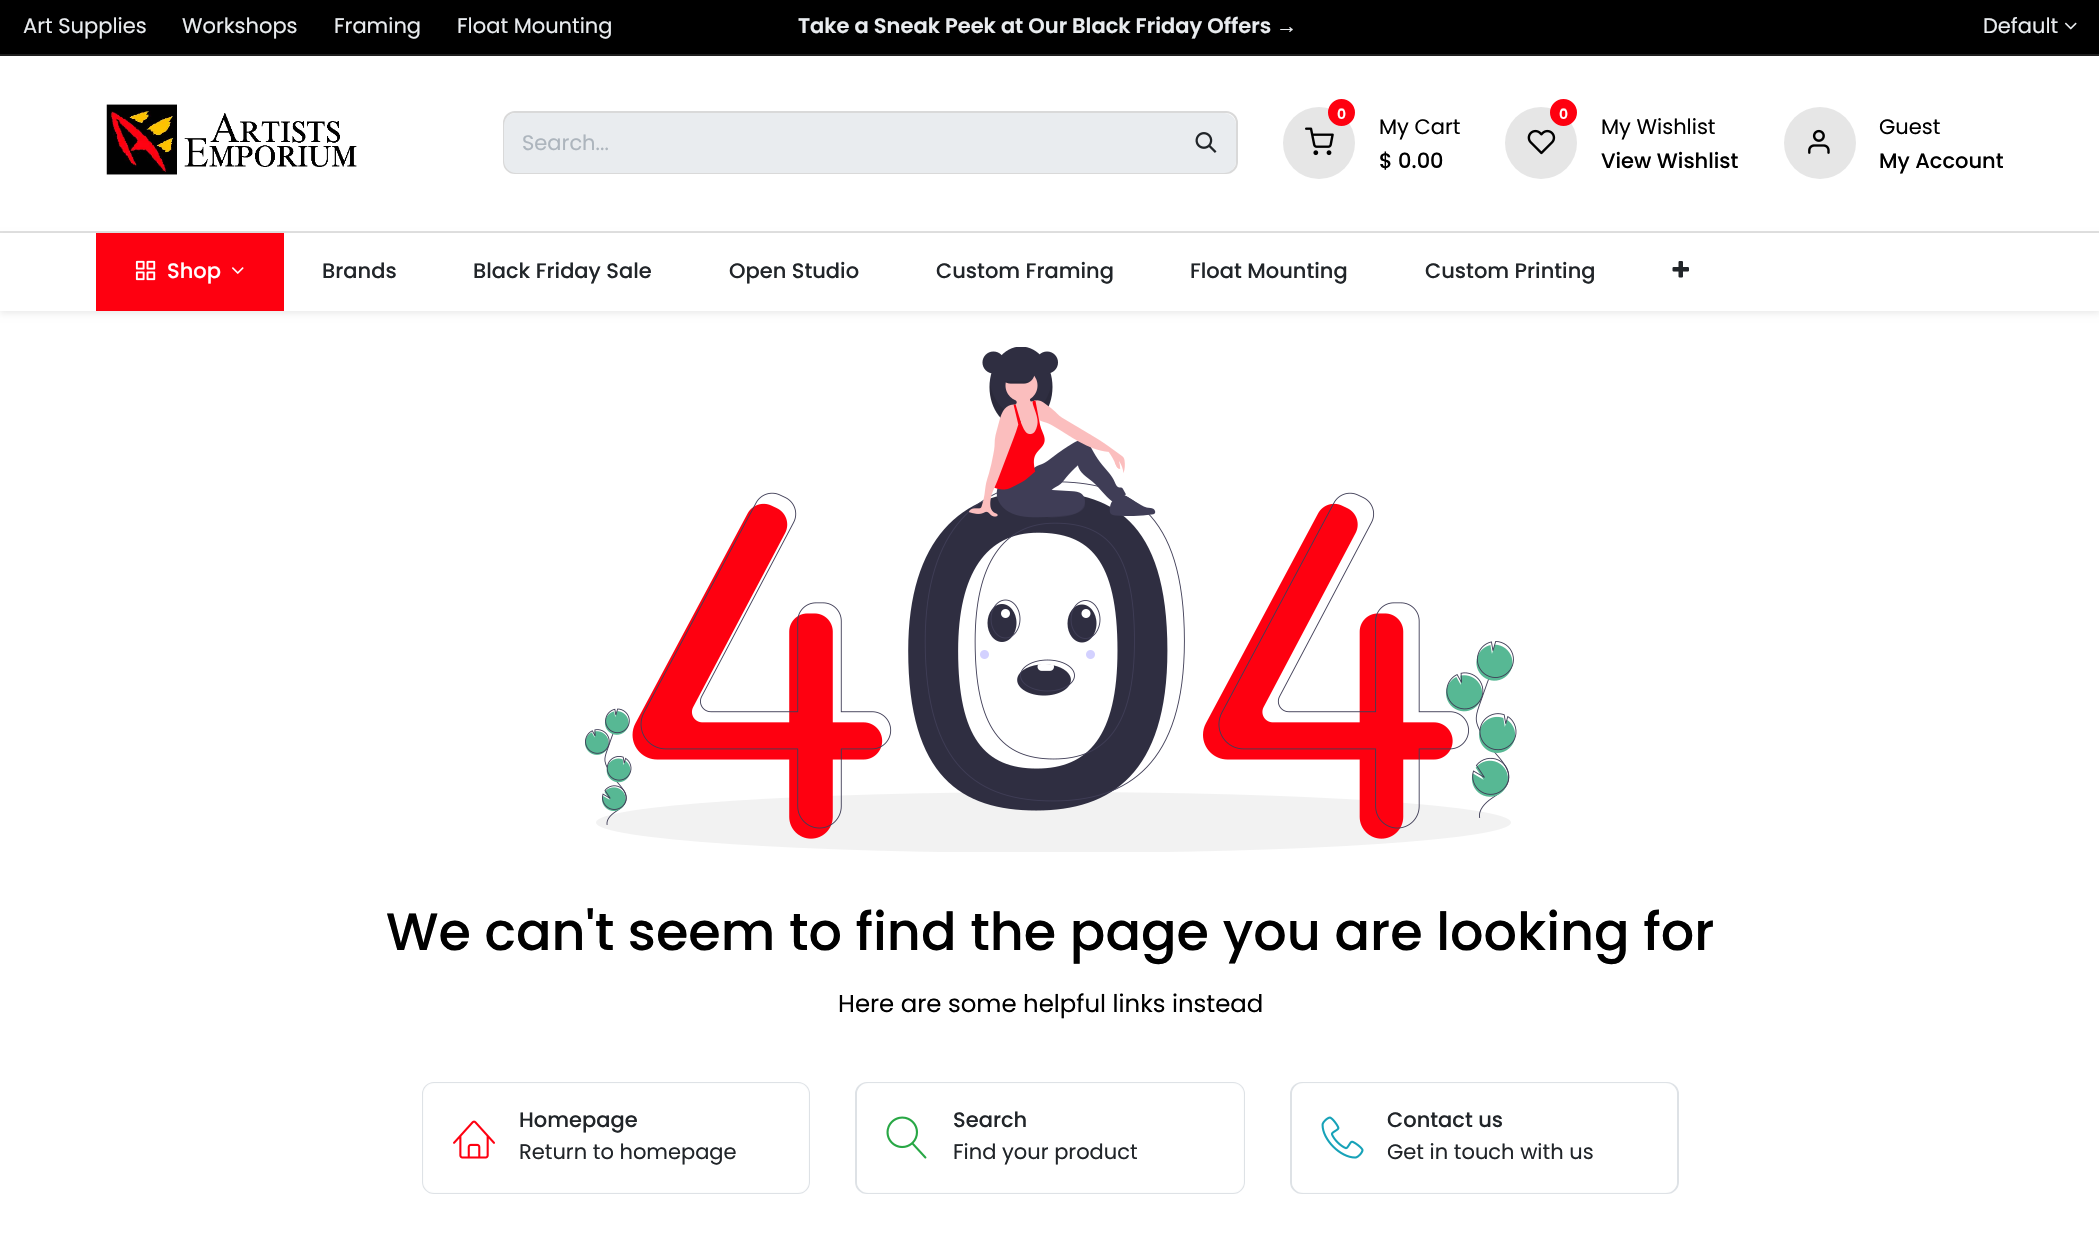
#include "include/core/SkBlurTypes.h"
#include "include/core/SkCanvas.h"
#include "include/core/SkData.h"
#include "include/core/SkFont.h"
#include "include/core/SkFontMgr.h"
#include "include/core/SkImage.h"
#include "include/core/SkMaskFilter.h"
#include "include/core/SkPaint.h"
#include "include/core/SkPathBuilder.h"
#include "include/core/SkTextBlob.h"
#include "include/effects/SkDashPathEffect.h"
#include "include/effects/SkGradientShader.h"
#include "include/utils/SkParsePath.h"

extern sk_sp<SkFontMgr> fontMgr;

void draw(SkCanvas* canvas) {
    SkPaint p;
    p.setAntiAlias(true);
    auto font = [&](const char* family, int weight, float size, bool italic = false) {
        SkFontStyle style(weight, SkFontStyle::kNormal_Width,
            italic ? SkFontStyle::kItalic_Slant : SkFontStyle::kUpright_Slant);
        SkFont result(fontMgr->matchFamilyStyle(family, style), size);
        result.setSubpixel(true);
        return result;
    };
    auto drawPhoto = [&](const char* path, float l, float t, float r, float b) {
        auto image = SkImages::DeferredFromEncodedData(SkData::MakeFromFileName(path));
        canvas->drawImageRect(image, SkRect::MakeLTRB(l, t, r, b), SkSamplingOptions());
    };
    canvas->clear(0xFFFFFFFF);
    p.setColor(0xFF000000);
    canvas->drawRect(SkRect::MakeLTRB(0, 0, 2099, 54), p);
    p.setColor(0xFF1F1F1F);
    canvas->drawRect(SkRect::MakeLTRB(0, 54, 2099, 56), p);
    auto font1 = font("Poppins", 400, 21);
    p.setColor(0xFFE9ECEF);
    {
        const struct { const char* s; float x, y; } items[] = {
            {"Art Supplies", 23, 33},
            {"Workshops", 182, 33},
            {"Framing", 334, 33},
            {"Float Mounting", 457, 33},
        };
        for (auto [s, x, y] : items) {
            canvas->drawString(s, x, y, font1, p);
        }
    }
    auto font2 = font("Poppins", 600, 21);
    canvas->drawString("Take a Sneak Peek at Our Black Friday Offers", 798, 33, font2, p);
    auto font3 = font("Liberation Sans", 700, 21);
    canvas->drawString("→", 1276, 33, font3, p);
    canvas->drawString("Default", 1983, 33, font1, p);
    drawPhoto("media/1.png", 2064, 22, 2077, 30);
    p.setColor(0xFFE0E0E0);
    canvas->drawRect(SkRect::MakeLTRB(0, 231, 2099, 233), p);
    drawPhoto("media/2.png", 106, 104, 357, 175);
    p.setStyle(SkPaint::kStroke_Style);
    p.setStrokeWidth(2);
    p.setColor(0xFFD9D9D9);
    canvas->drawRoundRect(SkRect::MakeLTRB(504, 112, 1237, 173), 11, 11, p);
    p.setStyle(SkPaint::kFill_Style);
    p.setColor(0xFFE9ECEF);
    canvas->drawPath(SkPathBuilder().moveTo(516, 113).lineTo(1178, 113).lineTo(1178, 173).lineTo(516, 173).cubicTo(509.5f, 173, 504, 167.5f, 504, 161).lineTo(504, 125).cubicTo(504, 118.5f, 509.5f, 113, 516, 113).close().detach(), p);
    p.setColor(0xFFADB5BD);
    canvas->drawString("Search...", 522, 150, font1, p);
    p.setColor(0xFFE9ECEF);
    canvas->drawPath(SkPathBuilder().moveTo(1177, 114).lineTo(1224, 114).cubicTo(1230, 114, 1235, 119, 1235, 125).lineTo(1235, 161).cubicTo(1235, 167, 1230, 172, 1224, 172).lineTo(1177, 172).close().detach(), p);
    p.setStyle(SkPaint::kStroke_Style);
    canvas->drawPath(SkPathBuilder().moveTo(1177, 114).lineTo(1224, 114).cubicTo(1230, 114, 1235, 119, 1235, 125).lineTo(1235, 161).cubicTo(1235, 167, 1230, 172, 1224, 172).lineTo(1177, 172).close().detach(), p);
    drawPhoto("media/3.png", 1195, 132, 1217, 153);
    p.setStyle(SkPaint::kFill_Style);
    p.setColor(0xFFE6E6E6);
    canvas->drawCircle(1319, 143, 36, p);
    drawPhoto("media/4.png", 1305, 127, 1334, 156);
    p.setColor(0xFFFE0010);
    canvas->drawCircle(1341.5f, 112.5f, 12.5f, p);
    p.setStyle(SkPaint::kStroke_Style);
    canvas->drawCircle(1341.5f, 112.5f, 12.5f, p);
    auto font4 = font("Poppins", 600, 14);
    p.setStyle(SkPaint::kFill_Style);
    p.setColor(0xFFFFFFFF);
    canvas->drawString("0", 1337, 119, font4, p);
    p.setColor(0xFF000000);
    canvas->drawString("My Cart", 1379, 134, font1, p);
    auto font5 = font("Poppins", 500, 21);
    canvas->drawString("$ 0.00", 1379, 168, font5, p);
    p.setColor(0xFFE6E6E6);
    canvas->drawCircle(1541, 143, 36, p);
    drawPhoto("media/5.png", 1527, 129, 1556, 155);
    p.setColor(0xFFFE0010);
    canvas->drawCircle(1563.5f, 112.5f, 12.5f, p);
    p.setStyle(SkPaint::kStroke_Style);
    canvas->drawCircle(1563.5f, 112.5f, 12.5f, p);
    p.setStyle(SkPaint::kFill_Style);
    p.setColor(0xFFFFFFFF);
    canvas->drawString("0", 1559, 119, font4, p);
    p.setColor(0xFF000000);
    canvas->drawString("My Wishlist", 1601, 134, font1, p);
    canvas->drawString("View Wishlist", 1601, 168, font5, p);
    p.setColor(0xFFE6E6E6);
    canvas->drawCircle(1820, 143, 36, p);
    drawPhoto("media/6.png", 1808, 129, 1830, 154);
    p.setColor(0xFF000000);
    canvas->drawString("Guest", 1879, 134, font1, p);
    canvas->drawString("My Account", 1879, 168, font5, p);
    p.setColor(0x12000000);
    p.setMaskFilter(SkMaskFilter::MakeBlur(kNormal_SkBlurStyle, 3));
    canvas->drawRect(SkRect::MakeLTRB(0, 236, 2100, 314), p);
    p.setMaskFilter(nullptr);
    p.setColor(0xFFFFFFFF);
    canvas->drawRect(SkRect::MakeLTRB(0, 233, 2099, 311), p);
    p.setColor(0xFFFE0010);
    canvas->drawRect(SkRect::MakeLTRB(96, 233, 284, 311), p);
    drawPhoto("media/7.png", 135, 260, 156, 281);
    p.setColor(0xFFFFFFFF);
    canvas->drawString("Shop", 167, 278, font5, p);
    drawPhoto("media/8.png", 232, 267, 244, 274);
    p.setColor(0xFF212529);
    {
        const struct { const char* s; float x, y; } items[] = {
            {"Brands", 322, 278},
            {"Black Friday Sale", 473, 278},
            {"Open Studio", 729, 278},
            {"Custom Framing", 936, 278},
            {"Float Mounting", 1190, 278},
            {"Custom Printing", 1425, 278},
        };
        for (auto [s, x, y] : items) {
            canvas->drawString(s, x, y, font5, p);
        }
    }
    drawPhoto("media/9.png", 1672, 261, 1689, 278);
    drawPhoto("media/10.png", 585, 347, 1517, 852);
    auto font6 = font("Poppins", 500, 52.5f);
    p.setColor(0xFF000000);
    canvas->drawString("We can't seem to find the page you are looking for", 386, 950, font6, p);
    auto font7 = font("Poppins", 400, 24.4f);
    canvas->drawString("Here are some helpful links instead", 838, 1012, font7, p);
    p.setStyle(SkPaint::kStroke_Style);
    p.setColor(0xFFDEE2E6);
    canvas->drawRoundRect(SkRect::MakeLTRB(423, 1083, 809, 1193), 11, 11, p);
    p.setStyle(SkPaint::kFill_Style);
    p.setColor(0xE6FFFFFF);
    canvas->drawRoundRect(SkRect::MakeLTRB(423, 1083, 809, 1193), 11, 11, p);
    drawPhoto("media/11.png", 453, 1120, 495, 1159);
    p.setColor(0xFF212529);
    canvas->drawString("Homepage", 519, 1127, font5, p);
    canvas->drawString("Return to homepage", 519, 1159, font1, p);
    p.setStyle(SkPaint::kStroke_Style);
    p.setColor(0xFFDEE2E6);
    canvas->drawRoundRect(SkRect::MakeLTRB(856, 1083, 1244, 1193), 11, 11, p);
    p.setStyle(SkPaint::kFill_Style);
    p.setColor(0xE6FFFFFF);
    canvas->drawRoundRect(SkRect::MakeLTRB(857, 1083, 1244, 1193), 11, 11, p);
    drawPhoto("media/12.png", 886, 1116, 927, 1159);
    p.setColor(0xFF212529);
    canvas->drawString("Search", 953, 1127, font5, p);
    canvas->drawString("Find your product", 953, 1159, font1, p);
    p.setStyle(SkPaint::kStroke_Style);
    p.setColor(0xFFDEE2E6);
    canvas->drawRoundRect(SkRect::MakeLTRB(1291, 1083, 1678, 1193), 11, 11, p);
    p.setStyle(SkPaint::kFill_Style);
    p.setColor(0xE6FFFFFF);
    canvas->drawRoundRect(SkRect::MakeLTRB(1292, 1083, 1677, 1193), 11, 11, p);
    drawPhoto("media/13.png", 1321, 1116, 1364, 1159);
    p.setColor(0xFF212529);
    canvas->drawString("Contact us", 1387, 1127, font5, p);
    canvas->drawString("Get in touch with us", 1387, 1159, font1, p);
}
